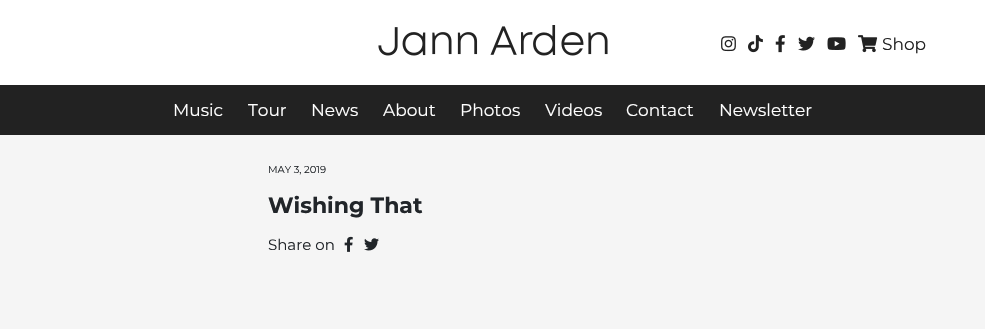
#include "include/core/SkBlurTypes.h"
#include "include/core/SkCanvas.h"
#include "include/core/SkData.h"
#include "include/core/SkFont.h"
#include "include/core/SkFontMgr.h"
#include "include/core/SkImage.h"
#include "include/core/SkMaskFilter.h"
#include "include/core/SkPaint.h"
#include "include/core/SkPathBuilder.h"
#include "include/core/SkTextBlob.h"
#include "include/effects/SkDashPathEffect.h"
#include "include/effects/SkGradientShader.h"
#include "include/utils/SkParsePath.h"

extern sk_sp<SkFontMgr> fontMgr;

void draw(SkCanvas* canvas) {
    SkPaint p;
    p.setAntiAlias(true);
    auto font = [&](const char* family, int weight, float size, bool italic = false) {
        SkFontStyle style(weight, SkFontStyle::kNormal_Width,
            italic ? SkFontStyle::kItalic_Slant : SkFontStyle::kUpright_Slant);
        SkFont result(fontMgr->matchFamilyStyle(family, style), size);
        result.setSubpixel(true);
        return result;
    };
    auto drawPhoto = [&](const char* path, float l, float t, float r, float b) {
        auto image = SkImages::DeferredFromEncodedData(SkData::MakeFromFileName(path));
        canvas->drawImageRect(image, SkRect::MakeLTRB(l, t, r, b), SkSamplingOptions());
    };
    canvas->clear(0xFFF5F5F5);
    p.setColor(0xFFFFFFFF);
    canvas->drawRect(SkRect::MakeLTRB(0, 0, 985, 85), p);
    drawPhoto("media/1.png", 378, 25, 608, 56);
    drawPhoto("media/2.png", 721, 36, 736, 52);
    drawPhoto("media/3.png", 748, 35, 763, 53);
    drawPhoto("media/4.png", 775, 35, 785, 53);
    drawPhoto("media/5.png", 798, 36, 815, 51);
    drawPhoto("media/6.png", 827, 37, 846, 50);
    drawPhoto("media/7.png", 858, 35, 878, 53);
    auto font1 = font("Montserrat", 400, 17);
    p.setColor(0xFF222222);
    canvas->drawString("Shop", 882, 50, font1, p);
    canvas->drawRect(SkRect::MakeLTRB(0, 85, 985, 135), p);
    p.setColor(0xFFFFFFFF);
    {
        const struct { const char* s; float x, y; } items[] = {
            {"Music", 173, 116},
            {"Tour", 248, 116},
            {"News", 311, 116},
            {"About", 383, 116},
            {"Photos", 460, 116},
            {"Videos", 545, 116},
            {"Contact", 626, 116},
            {"Newsletter", 719, 116},
        };
        for (auto [s, x, y] : items) {
            canvas->drawString(s, x, y, font1, p);
        }
    }
    auto font2 = font("Montserrat", 400, 10);
    p.setColor(0xFF212529);
    canvas->drawString("MAY 3, 2019", 268, 173, font2, p);
    auto font3 = font("Montserrat", 700, 22);
    canvas->drawString("Wishing That", 268, 213, font3, p);
    auto font4 = font("Montserrat", 400, 15);
    canvas->drawString("Share on", 268, 250, font4, p);
    drawPhoto("media/8.png", 344, 236, 353, 252);
    drawPhoto("media/9.png", 364, 238, 379, 251);
}
